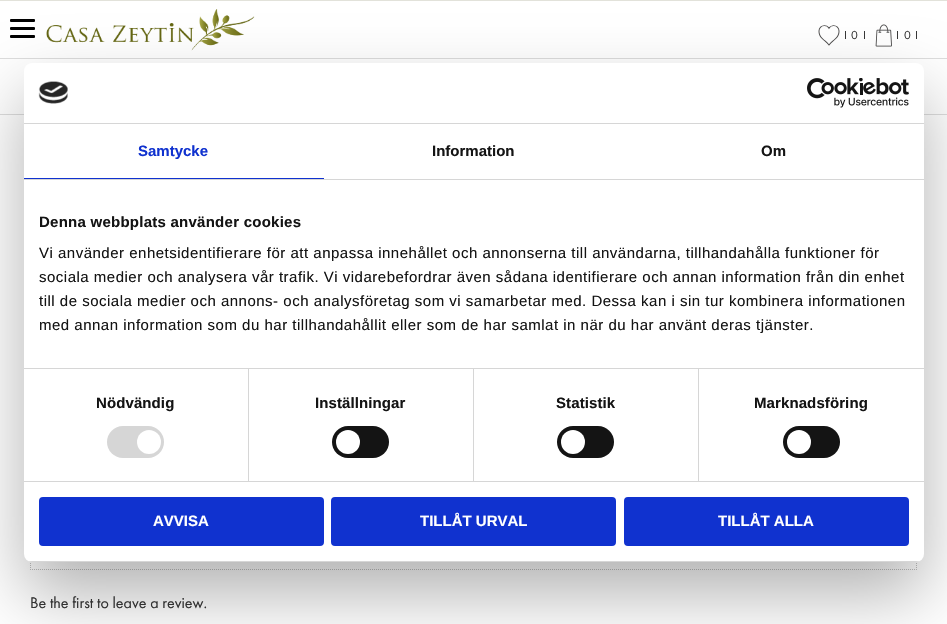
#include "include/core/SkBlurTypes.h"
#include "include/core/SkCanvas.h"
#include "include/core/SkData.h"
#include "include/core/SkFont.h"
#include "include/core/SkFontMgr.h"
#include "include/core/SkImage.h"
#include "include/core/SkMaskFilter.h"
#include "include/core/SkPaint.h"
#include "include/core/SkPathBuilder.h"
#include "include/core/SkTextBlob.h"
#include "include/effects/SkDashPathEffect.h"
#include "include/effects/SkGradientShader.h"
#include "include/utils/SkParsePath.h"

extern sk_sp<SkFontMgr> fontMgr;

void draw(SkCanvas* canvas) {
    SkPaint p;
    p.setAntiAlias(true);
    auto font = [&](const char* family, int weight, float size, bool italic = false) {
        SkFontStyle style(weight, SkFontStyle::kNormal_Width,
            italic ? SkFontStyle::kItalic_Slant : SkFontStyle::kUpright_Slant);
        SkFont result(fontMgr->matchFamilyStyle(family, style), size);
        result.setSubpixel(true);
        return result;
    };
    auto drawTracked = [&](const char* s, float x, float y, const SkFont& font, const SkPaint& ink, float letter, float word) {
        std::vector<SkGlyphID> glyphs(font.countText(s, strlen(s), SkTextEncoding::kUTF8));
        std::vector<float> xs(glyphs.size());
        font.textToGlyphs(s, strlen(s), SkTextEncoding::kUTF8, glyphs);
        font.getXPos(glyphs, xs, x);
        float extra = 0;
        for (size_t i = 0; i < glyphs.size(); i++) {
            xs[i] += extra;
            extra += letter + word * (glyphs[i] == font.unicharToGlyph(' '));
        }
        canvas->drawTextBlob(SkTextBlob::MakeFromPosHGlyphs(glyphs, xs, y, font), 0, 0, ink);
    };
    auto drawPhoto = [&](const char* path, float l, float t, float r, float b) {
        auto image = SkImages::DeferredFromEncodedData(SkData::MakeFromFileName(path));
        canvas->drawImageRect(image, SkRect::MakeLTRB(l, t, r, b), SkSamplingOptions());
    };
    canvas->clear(0xFFFFFFFF);
    p.setColor(0xFF000000);
    canvas->drawRoundRect(SkRect::MakeLTRB(10, 27, 35, 30), 1, 1, p);
    canvas->drawRoundRect(SkRect::MakeLTRB(10, 19, 35, 22), 1, 1, p);
    canvas->drawRoundRect(SkRect::MakeLTRB(10, 35, 35, 38), 1, 1, p);
    p.setColor(0xFFE2E2DA);
    canvas->drawRect(SkRect::MakeLTRB(0, 0, 947, 1), p);
    drawPhoto("media/1.png", 46, 9, 255, 51);
    p.setColor(0xFFDDDDDD);
    canvas->drawRect(SkRect::MakeLTRB(0, 58, 947, 59), p);
    canvas->drawRect(SkRect::MakeLTRB(0, 114, 947, 115), p);
    drawPhoto("media/2.png", 818, 25, 840, 46);
    p.setColor(0xFF373737);
    canvas->drawRect(SkRect::MakeLTRB(864, 31, 865, 39), p);
    canvas->drawRect(SkRect::MakeLTRB(845, 31, 846, 39), p);
    auto font1 = font("Futura PT", 400, 12);
    canvas->drawString("0", 851, 39, font1, p);
    drawPhoto("media/3.png", 875, 24, 892, 47);
    canvas->drawRect(SkRect::MakeLTRB(916, 31, 917, 39), p);
    canvas->drawRect(SkRect::MakeLTRB(897, 31, 898, 39), p);
    canvas->drawString("0", 904, 39, font1, p);
    p.setStyle(SkPaint::kStroke_Style);
    p.setStrokeWidth(1);
    p.setColor(0xFFC0C0C0);
    p.setPathEffect(SkDashPathEffect::Make({{1, 1}}, 0));
    canvas->drawPath(SkPathBuilder().moveTo(916.5f, 405).lineTo(916.5f, 570).detach(), p);
    p.setPathEffect(nullptr);
    p.setPathEffect(SkDashPathEffect::Make({{1, 1}}, 0));
    canvas->drawPath(SkPathBuilder().moveTo(30, 569.5f).lineTo(917, 569.5f).detach(), p);
    p.setPathEffect(nullptr);
    p.setPathEffect(SkDashPathEffect::Make({{1, 1}}, 0));
    canvas->drawPath(SkPathBuilder().moveTo(30.5f, 405).lineTo(30.5f, 570).detach(), p);
    p.setPathEffect(nullptr);
    auto font2 = font("Futura PT", 400, 16);
    p.setStyle(SkPaint::kFill_Style);
    p.setColor(0xFF373737);
    canvas->drawString("Be the first to leave a review.", 30, 608, font2, p);
    p.setColor(0x4D000000);
    p.setMaskFilter(SkMaskFilter::MakeBlur(kNormal_SkBlurStyle, 34));
    canvas->drawRoundRect(SkRect::MakeLTRB(24, 95, 924, 594), 8, 8, p);
    p.setMaskFilter(nullptr);
    p.setColor(0xFFFFFFFF);
    canvas->drawRoundRect(SkRect::MakeLTRB(24, 63, 924, 562), 8, 8, p);
    p.setColor(0xFFD6D6D6);
    canvas->drawRect(SkRect::MakeLTRB(24, 123, 924, 124), p);
    drawPhoto("media/4.png", 38, 81, 68, 104);
    drawPhoto("media/5.png", 807, 78, 909, 108);
    canvas->drawRect(SkRect::MakeLTRB(24, 179, 924, 180), p);
    p.setColor(0xFF1032CF);
    canvas->drawRect(SkRect::MakeLTRB(24, 178, 324, 179), p);
    auto font3 = font("Liberation Sans", 700, 15);
    canvas->drawString("Samtycke", 138, 156, font3, p);
    p.setColor(0xFF141414);
    canvas->drawString("Information", 432, 156, font3, p);
    canvas->drawString("Om", 761, 156, font3, p);
    p.setColor(0xFFD6D6D6);
    canvas->drawRect(SkRect::MakeLTRB(24, 368, 924, 369), p);
    p.setColor(0xFF141414);
    drawTracked("Denna webbplats använder cookies", 39, 227, font3, p, 0.25f, 0);
    auto font4 = font("Liberation Sans", 400, 15);
    {
        const struct { const char* s; float x, y; } items[] = {
            {"Vi använder enhetsidentifierare för att anpassa innehållet och annonserna till användarna, tillhandahålla funktioner för", 39, 258},
            {"sociala medier och analysera vår trafik. Vi vidarebefordrar även sådana identifierare och annan information från din enhet", 39, 282},
            {"till de sociala medier och annons- och analysföretag som vi samarbetar med. Dessa kan i sin tur kombinera informationen", 39, 306},
            {"med annan information som du har tillhandahållit eller som de har samlat in när du har använt deras tjänster.", 39, 330},
        };
        for (auto [s, x, y] : items) {
            drawTracked(s, x, y, font4, p, 0.5f, 0);
        }
    }
    p.setColor(0xFFD6D6D6);
    canvas->drawRect(SkRect::MakeLTRB(24, 481, 924, 482), p);
    canvas->drawRect(SkRect::MakeLTRB(248, 369, 249, 481), p);
    p.setColor(0xFF141414);
    drawTracked("Nödvändig", 96, 408, font3, p, 0.1f, 0);
    p.setColor(0xFFD6D6D6);
    canvas->drawRoundRect(SkRect::MakeLTRB(107, 426, 164, 458), 16, 16, p);
    p.setColor(0xFFFFFFFF);
    canvas->drawCircle(149, 442, 12, p);
    p.setColor(0xFFD6D6D6);
    canvas->drawRect(SkRect::MakeLTRB(473, 369, 474, 481), p);
    p.setColor(0xFF141414);
    drawTracked("Inställningar", 315, 408, font3, p, 0.1f, 0);
    canvas->drawRoundRect(SkRect::MakeLTRB(332, 426, 389, 458), 16, 16, p);
    p.setColor(0xFFFFFFFF);
    canvas->drawCircle(348, 442, 12, p);
    p.setColor(0xFFD6D6D6);
    canvas->drawRect(SkRect::MakeLTRB(698, 369, 699, 481), p);
    p.setColor(0xFF141414);
    drawTracked("Statistik", 556, 408, font3, p, 0.1f, 0);
    canvas->drawRoundRect(SkRect::MakeLTRB(557, 426, 614, 458), 16, 16, p);
    p.setColor(0xFFFFFFFF);
    canvas->drawCircle(573, 442, 12, p);
    p.setColor(0xFF141414);
    drawTracked("Marknadsföring", 754, 408, font3, p, 0.1f, 0);
    canvas->drawRoundRect(SkRect::MakeLTRB(783, 426, 840, 458), 16, 16, p);
    p.setColor(0xFFFFFFFF);
    canvas->drawCircle(799, 442, 12, p);
    canvas->save();
    canvas->clipPath(SkPathBuilder().moveTo(32, 63).lineTo(916, 63).cubicTo(920.5f, 63, 924, 66.5f, 924, 71).lineTo(924, 554).cubicTo(924, 558.5f, 920.5f, 562, 916, 562).lineTo(32, 562).cubicTo(27.5f, 562, 24, 558.5f, 24, 554).lineTo(24, 71).cubicTo(24, 66.5f, 27.5f, 63, 32, 63).close().detach(), true);
    p.setColor(0xFFD6D6D6);
    canvas->drawRect(SkRect::MakeLTRB(24, 561, 924, 562), p);
    canvas->restore();
    p.setColor(0xFF1032CF);
    canvas->drawRoundRect(SkRect::MakeLTRB(40, 498, 323, 545), 3, 3, p);
    p.setStyle(SkPaint::kStroke_Style);
    p.setStrokeWidth(2);
    canvas->drawRoundRect(SkRect::MakeLTRB(40, 498, 323, 545), 3, 3, p);
    p.setStyle(SkPaint::kFill_Style);
    p.setColor(0xFFFFFFFF);
    canvas->drawString("AVVISA", 153, 526, font3, p);
    p.setColor(0xFF1032CF);
    canvas->drawRoundRect(SkRect::MakeLTRB(332, 498, 615, 545), 3, 3, p);
    p.setStyle(SkPaint::kStroke_Style);
    canvas->drawRoundRect(SkRect::MakeLTRB(332, 498, 615, 545), 3, 3, p);
    p.setStyle(SkPaint::kFill_Style);
    p.setColor(0xFFFFFFFF);
    canvas->drawString("TILLÅT URVAL", 420, 526, font3, p);
    p.setColor(0xFF1032CF);
    canvas->drawRoundRect(SkRect::MakeLTRB(625, 498, 908, 545), 3, 3, p);
    p.setStyle(SkPaint::kStroke_Style);
    canvas->drawRoundRect(SkRect::MakeLTRB(625, 498, 908, 545), 3, 3, p);
    p.setStyle(SkPaint::kFill_Style);
    p.setColor(0xFFFFFFFF);
    canvas->drawString("TILLÅT ALLA", 718, 526, font3, p);
}
